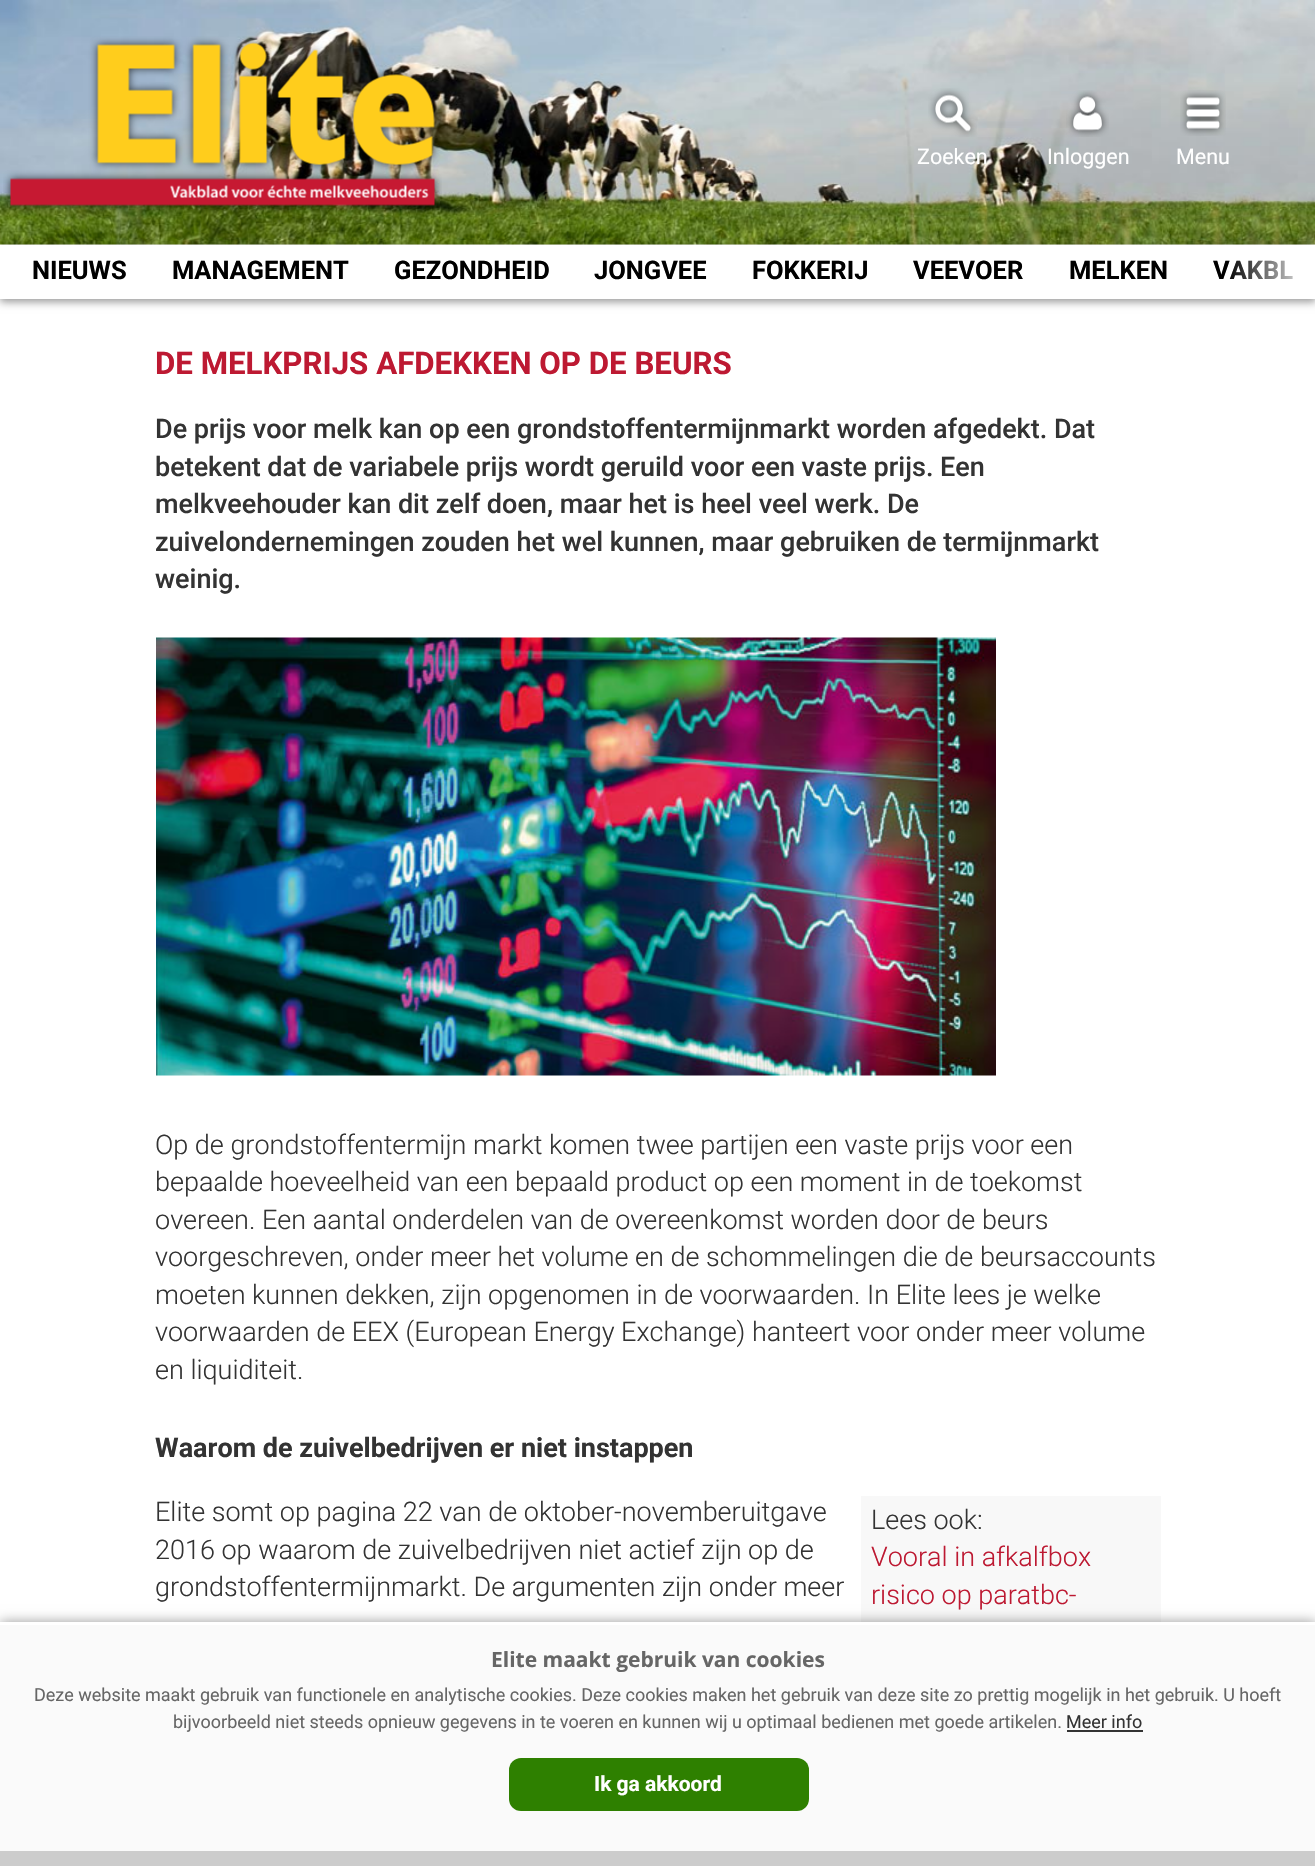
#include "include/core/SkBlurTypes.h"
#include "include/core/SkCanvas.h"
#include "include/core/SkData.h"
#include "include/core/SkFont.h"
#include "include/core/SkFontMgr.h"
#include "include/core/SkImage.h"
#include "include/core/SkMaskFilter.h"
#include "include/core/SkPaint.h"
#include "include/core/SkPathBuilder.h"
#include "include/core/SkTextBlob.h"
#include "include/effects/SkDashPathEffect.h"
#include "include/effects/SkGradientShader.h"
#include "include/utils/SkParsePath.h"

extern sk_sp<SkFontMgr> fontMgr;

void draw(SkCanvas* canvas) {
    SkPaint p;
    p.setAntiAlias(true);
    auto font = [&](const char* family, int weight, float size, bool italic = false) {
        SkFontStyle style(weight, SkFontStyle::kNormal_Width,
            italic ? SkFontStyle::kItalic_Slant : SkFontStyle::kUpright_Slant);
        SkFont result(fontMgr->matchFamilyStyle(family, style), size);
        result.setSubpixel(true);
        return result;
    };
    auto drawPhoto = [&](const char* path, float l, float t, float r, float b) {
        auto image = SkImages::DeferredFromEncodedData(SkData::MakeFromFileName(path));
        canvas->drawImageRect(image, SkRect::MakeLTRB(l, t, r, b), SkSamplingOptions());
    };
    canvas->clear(0xFFFFFFFF);
    drawPhoto("media/1.png", 0, 0, 1315, 245);
    drawPhoto("media/2.png", 3, 36, 442, 213);
    drawPhoto("media/3.png", 928, 88, 977, 137);
    auto font1 = font("Roboto", 400, 21.5f);
    p.setColor(0xFFFFFFFF);
    canvas->drawString("Zoeken", 917, 164, font1, p);
    drawPhoto("media/4.png", 1066, 90, 1109, 137);
    canvas->drawString("Inloggen", 1047, 164, font1, p);
    drawPhoto("media/5.png", 1180, 90, 1226, 136);
    canvas->drawString("Menu", 1176, 164, font1, p);
    p.setColor(0x66000000);
    p.setMaskFilter(SkMaskFilter::MakeBlur(kNormal_SkBlurStyle, 4));
    canvas->drawRect(SkRect::MakeLTRB(0, 248, 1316, 302), p);
    p.setMaskFilter(nullptr);
    p.setColor(0xFFFFFFFF);
    canvas->drawRect(SkRect::MakeLTRB(0, 245, 1315, 299), p);
    auto font2 = font("Roboto", 700, 25.5f);
    p.setColor(0xFF000000);
    {
        const struct { const char* s; float x, y; } items[] = {
            {"NIEUWS", 32, 279},
            {"MANAGEMENT", 172, 279},
            {"GEZONDHEID", 394, 279},
            {"JONGVEE", 594, 279},
            {"FOKKERIJ", 752, 279},
            {"VEEVOER", 913, 279},
            {"MELKEN", 1069, 279},
            {"VAKBL", 1213, 279},
        };
        for (auto [s, x, y] : items) {
            canvas->drawString(s, x, y, font2, p);
        }
    }
    {
        const SkColor colors[] = {0x00FFFFFF, 0xFFFFFFFF};
        const float stops[] = {0, 1};
        const SkPoint ends[] = {{1226, 269}, {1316, 269}};
        p.setShader(SkGradientShader::MakeLinear(ends, colors, stops, 2, SkTileMode::kClamp));
        p.setAlpha(255);
    }
    canvas->drawRect(SkRect::MakeLTRB(1228, 260, 1293, 279), p);
    auto font3 = font("Roboto", 700, 31.25f);
    p.setShader(nullptr);
    p.setColor(0xFFBD1932);
    canvas->drawString("DE MELKPRIJS AFDEKKEN OP DE BEURS", 155, 374, font3, p);
    auto font4 = font("Roboto", 500, 27);
    p.setColor(0xFF333333);
    {
        const struct { const char* s; float x, y; } items[] = {
            {"De prijs voor melk kan op een grondstoffentermijnmarkt worden afgedekt. Dat", 155, 438},
            {"betekent dat de variabele prijs wordt geruild voor een vaste prijs. Een", 155, 476},
            {"melkveehouder kan dit zelf doen, maar het is heel veel werk. De", 155, 513},
            {"zuivelondernemingen zouden het wel kunnen, maar gebruiken de termijnmarkt", 155, 551},
            {"weinig.", 155, 588},
        };
        for (auto [s, x, y] : items) {
            canvas->drawString(s, x, y, font4, p);
        }
    }
    drawPhoto("media/6.png", 156, 637, 996, 1076);
    auto font5 = font("Roboto", 300, 27);
    {
        const struct { const char* s; float x, y; } items[] = {
            {"Op de grondstoffentermijn markt komen twee partijen een vaste prijs voor een", 155, 1154},
            {"bepaalde hoeveelheid van een bepaald product op een moment in de toekomst", 155, 1191},
            {"overeen. Een aantal onderdelen van de overeenkomst worden door de beurs", 155, 1229},
            {"voorgeschreven, onder meer het volume en de schommelingen die de beursaccounts", 155, 1266},
            {"moeten kunnen dekken, zijn opgenomen in de voorwaarden. In Elite lees je welke", 155, 1304},
            {"voorwaarden de EEX (European Energy Exchange) hanteert voor onder meer volume", 155, 1341},
            {"en liquiditeit.", 155, 1379},
        };
        for (auto [s, x, y] : items) {
            canvas->drawString(s, x, y, font5, p);
        }
    }
    auto font6 = font("Roboto", 700, 27);
    canvas->drawString("Waarom de zuivelbedrijven er niet instappen", 155, 1457, font6, p);
    canvas->drawString("Elite somt op pagina 22 van de oktober-novemberuitgave", 155, 1521, font5, p);
    p.setColor(0xFFF8F8F8);
    canvas->drawRect(SkRect::MakeLTRB(861, 1496, 1161, 1622), p);
    p.setColor(0xFF333333);
    canvas->drawString("Lees ook:", 871, 1529, font5, p);
    p.setColor(0xFFBD1932);
    canvas->drawString("Vooral in afkalfbox", 871, 1566, font5, p);
    canvas->drawString("risico op paratbc-", 871, 1604, font5, p);
    p.setColor(0xFF333333);
    canvas->drawString("2016 op waarom de zuivelbedrijven niet actief zijn op de", 155, 1559, font5, p);
    canvas->drawString("grondstoffentermijnmarkt. De argumenten zijn onder meer", 155, 1596, font5, p);
    p.setColor(0x66000000);
    p.setMaskFilter(SkMaskFilter::MakeBlur(kNormal_SkBlurStyle, 6));
    canvas->drawRect(SkRect::MakeLTRB(0, 1622, 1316, 1866), p);
    p.setMaskFilter(nullptr);
    {
        const struct { float l, t, r, b; SkColor color; } items[] = {
            {0, 1625, 1315, 1851, 0xFFFAFAFA},
            {0, 1622, 1315, 1625, 0xFFFFFFFF},
            {0, 1851, 1315, 1866, 0xFFCCCCCC},
        };
        for (auto [l, t, r, b, color] : items) {
            p.setColor(color);
            canvas->drawRect(SkRect::MakeLTRB(l, t, r, b), p);
        }
    }
    auto font7 = font("Open Sans", 700, 21);
    p.setColor(0xFF666666);
    canvas->drawString("Elite maakt gebruik van cookies", 491, 1667, font7, p);
    auto font8 = font("Roboto", 400, 18);
    canvas->drawString("Deze website maakt gebruik van functionele en analytische cookies. Deze cookies maken het gebruik van deze site zo prettig mogelijk in het gebruik. U hoeft", 34, 1701, font8, p);
    canvas->drawString("bijvoorbeeld niet steeds opnieuw gegevens in te voeren en kunnen wij u optimaal bedienen met goede artikelen.", 173, 1728, font8, p);
    p.setColor(0xFF333333);
    canvas->drawString("Meer info", 1066, 1728, font8, p);
    canvas->drawRect(SkRect::MakeLTRB(1067, 1730, 1143, 1732), p);
    p.setColor(0xFF2E8000);
    canvas->drawRoundRect(SkRect::MakeLTRB(509, 1758, 809, 1811), 12, 12, p);
    auto font9 = font("Roboto", 700, 21);
    p.setColor(0xFFFFFFFF);
    canvas->drawString("Ik ga akkoord", 594, 1791, font9, p);
}
